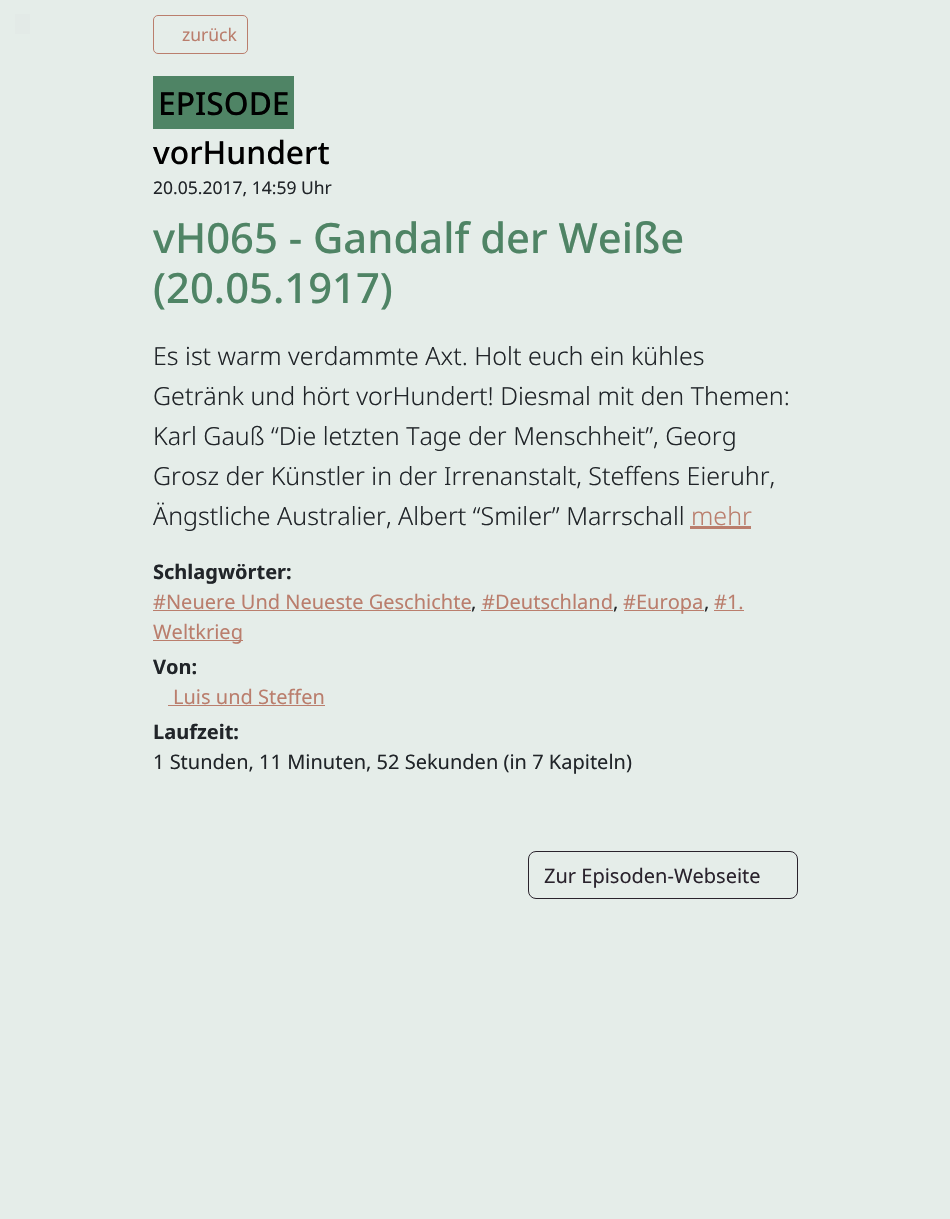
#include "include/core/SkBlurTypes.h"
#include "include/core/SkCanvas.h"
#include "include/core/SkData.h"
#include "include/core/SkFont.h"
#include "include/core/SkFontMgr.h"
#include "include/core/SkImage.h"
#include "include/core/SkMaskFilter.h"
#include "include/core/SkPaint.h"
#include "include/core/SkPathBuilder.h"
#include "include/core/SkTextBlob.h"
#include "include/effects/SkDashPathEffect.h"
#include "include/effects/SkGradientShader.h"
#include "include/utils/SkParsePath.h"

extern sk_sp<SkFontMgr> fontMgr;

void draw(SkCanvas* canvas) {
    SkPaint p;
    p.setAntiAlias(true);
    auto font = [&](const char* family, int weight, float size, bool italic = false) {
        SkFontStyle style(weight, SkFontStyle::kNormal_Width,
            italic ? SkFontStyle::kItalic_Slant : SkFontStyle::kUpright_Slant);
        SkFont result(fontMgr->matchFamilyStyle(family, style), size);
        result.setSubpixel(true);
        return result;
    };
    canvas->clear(0xFFE5EDE9);
    p.setColor(0xFFE3EAE7);
    canvas->drawRect(SkRect::MakeLTRB(15, 14, 30, 34), p);
    p.setStyle(SkPaint::kStroke_Style);
    p.setStrokeWidth(1);
    p.setColor(0xFFBA7E6D);
    canvas->drawRoundRect(SkRect::MakeLTRB(153.5f, 15.5f, 247.5f, 53.5f), 4.5f, 4.5f, p);
    auto font1 = font("Noto Sans", 400, 17.5f);
    p.setStyle(SkPaint::kFill_Style);
    canvas->drawString("zurück", 182, 41, font1, p);
    p.setColor(0xFF4F8465);
    canvas->drawRect(SkRect::MakeLTRB(153, 76, 294, 129), p);
    auto font2 = font("Noto Sans", 500, 31.75f);
    p.setColor(0xFF000000);
    canvas->drawString("EPISODE", 158, 115, font2, p);
    canvas->drawString("vorHundert", 153, 164, font2, p);
    p.setColor(0xFF212529);
    canvas->drawString("20.05.2017, 14:59 Uhr", 153, 194, font1, p);
    auto font3 = font("Noto Sans", 500, 41.75f);
    p.setColor(0xFF4F8465);
    canvas->drawString("vH065 - Gandalf der Weiße", 153, 253, font3, p);
    canvas->drawString("(20.05.1917)", 153, 303, font3, p);
    auto font4 = font("Noto Sans", 300, 25);
    p.setColor(0xFF212529);
    {
        const struct { const char* s; float x, y; } items[] = {
            {"Es ist warm verdammte Axt. Holt euch ein kühles", 153, 365},
            {"Getränk und hört vorHundert! Diesmal mit den Themen:", 153, 405},
            {"Karl Gauß “Die letzten Tage der Menschheit”, Georg", 153, 445},
            {"Grosz der Künstler in der Irrenanstalt, Steffens Eieruhr,", 153, 485},
            {"Ängstliche Australier, Albert “Smiler” Marrschall", 153, 525},
        };
        for (auto [s, x, y] : items) {
            canvas->drawString(s, x, y, font4, p);
        }
    }
    p.setColor(0xFFBA7E6D);
    canvas->drawString("mehr", 691, 525, font4, p);
    canvas->drawRect(SkRect::MakeLTRB(690, 526, 751, 529), p);
    auto font5 = font("Noto Sans", 700, 20);
    p.setColor(0xFF212529);
    canvas->drawString("Schlagwörter:", 153, 579, font5, p);
    auto font6 = font("Noto Sans", 400, 20);
    p.setColor(0xFFBA7E6D);
    canvas->drawString("#Neuere Und Neueste Geschichte", 153, 609, font6, p);
    canvas->drawRect(SkRect::MakeLTRB(153, 610, 471, 611), p);
    p.setColor(0xFF212529);
    canvas->drawString(",", 471, 609, font6, p);
    p.setColor(0xFFBA7E6D);
    canvas->drawString("#Deutschland", 482, 609, font6, p);
    canvas->drawRect(SkRect::MakeLTRB(481, 610, 613, 611), p);
    p.setColor(0xFF212529);
    canvas->drawString(",", 613, 609, font6, p);
    p.setColor(0xFFBA7E6D);
    canvas->drawRect(SkRect::MakeLTRB(624, 610, 704, 611), p);
    canvas->drawString("#Europa", 623, 609, font6, p);
    p.setColor(0xFF212529);
    canvas->drawString(",", 704, 609, font6, p);
    p.setColor(0xFFBA7E6D);
    canvas->drawString("#1.", 714, 609, font6, p);
    canvas->drawRect(SkRect::MakeLTRB(714, 610, 744, 611), p);
    canvas->drawRect(SkRect::MakeLTRB(153, 640, 243, 641), p);
    canvas->drawString("Weltkrieg", 153, 639, font6, p);
    p.setColor(0xFF212529);
    canvas->drawString("Von:", 153, 674, font5, p);
    p.setColor(0xFFBA7E6D);
    canvas->drawString("Luis und Steffen", 173, 704, font6, p);
    canvas->drawRect(SkRect::MakeLTRB(168, 705, 325, 706), p);
    p.setColor(0xFF212529);
    canvas->drawString("Laufzeit:", 153, 739, font5, p);
    canvas->drawString("1 Stunden, 11 Minuten, 52 Sekunden (in 7 Kapiteln)", 153, 769, font6, p);
    p.setStyle(SkPaint::kStroke_Style);
    p.setColor(0xFF2A232D);
    canvas->drawRoundRect(SkRect::MakeLTRB(528.5f, 851.5f, 797.5f, 898.5f), 7.5f, 7.5f, p);
    p.setStyle(SkPaint::kFill_Style);
    canvas->drawString("Zur Episoden-Webseite", 544, 883, font6, p);
}
